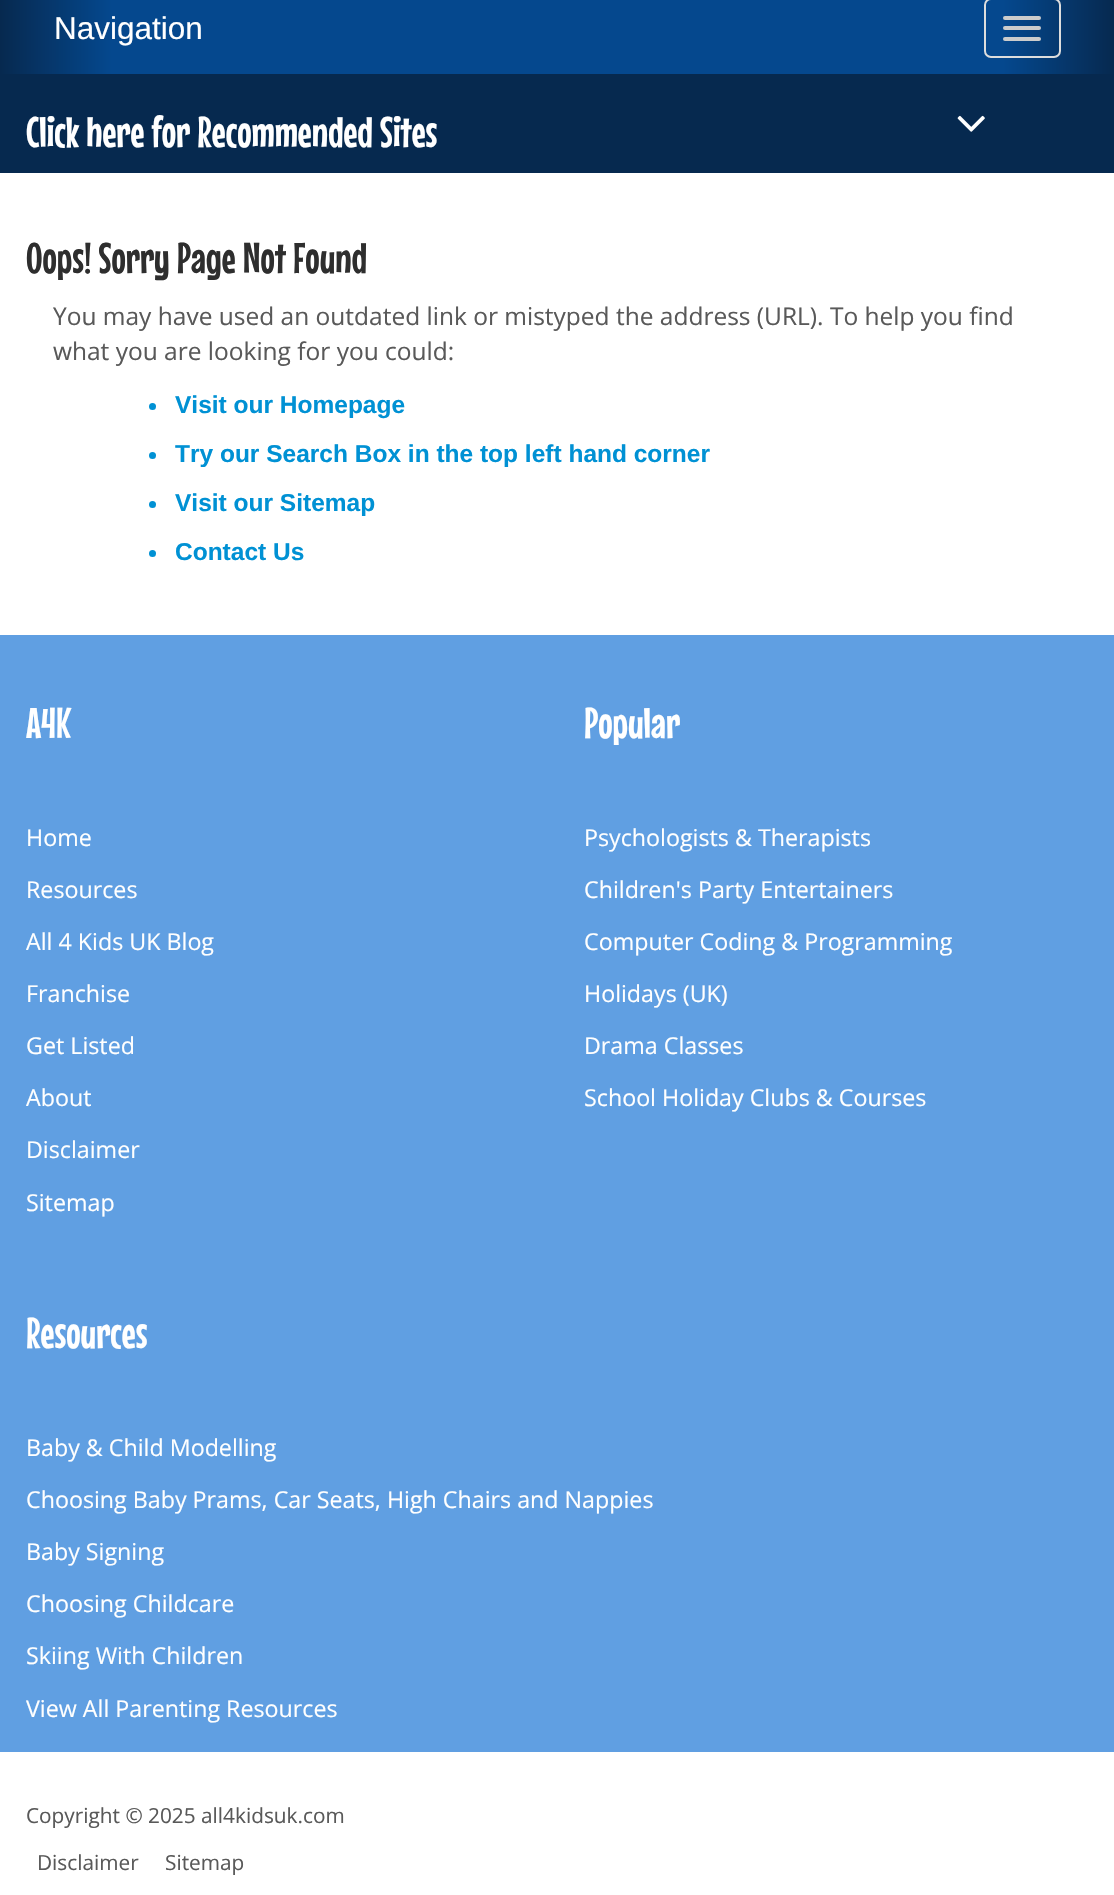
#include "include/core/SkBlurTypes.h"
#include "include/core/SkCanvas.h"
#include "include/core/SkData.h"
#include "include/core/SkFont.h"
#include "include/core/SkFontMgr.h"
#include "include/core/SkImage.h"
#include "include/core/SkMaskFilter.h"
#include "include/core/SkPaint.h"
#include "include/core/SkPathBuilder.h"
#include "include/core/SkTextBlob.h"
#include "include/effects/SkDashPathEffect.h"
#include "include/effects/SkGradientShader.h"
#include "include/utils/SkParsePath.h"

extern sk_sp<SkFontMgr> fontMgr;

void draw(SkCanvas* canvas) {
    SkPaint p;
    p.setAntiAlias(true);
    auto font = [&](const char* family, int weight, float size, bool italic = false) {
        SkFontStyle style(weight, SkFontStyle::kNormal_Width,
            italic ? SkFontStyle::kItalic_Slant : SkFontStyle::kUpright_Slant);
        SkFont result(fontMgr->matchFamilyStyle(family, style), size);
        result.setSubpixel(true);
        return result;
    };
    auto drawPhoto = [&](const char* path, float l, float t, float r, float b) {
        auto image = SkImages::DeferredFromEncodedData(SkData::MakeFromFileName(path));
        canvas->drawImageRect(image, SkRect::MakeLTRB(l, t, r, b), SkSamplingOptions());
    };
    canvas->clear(0xFFFFFFFF);
    {
        const SkColor colors[] = {0xFF06294F, 0xFF05488E, 0xFF05488E, 0xFF06294F};
        const float stops[] = {0, 0.1f, 0.9f, 1};
        const SkPoint ends[] = {{0, 28}, {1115, 28}};
        p.setShader(SkGradientShader::MakeLinear(ends, colors, stops, 4, SkTileMode::kClamp));
        p.setAlpha(255);
    }
    canvas->drawRect(SkRect::MakeLTRB(0, 0, 1114, 74), p);
    auto font1 = font("Liberation Sans", 400, 31.5f);
    p.setShader(nullptr);
    p.setColor(0xFFFFFFFF);
    canvas->drawString("Navigation", 54, 39, font1, p);
    p.setStyle(SkPaint::kStroke_Style);
    p.setStrokeWidth(2);
    p.setColor(0xFFDDDDDD);
    canvas->drawRoundRect(SkRect::MakeLTRB(985, -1, 1060, 57), 6, 6, p);
    p.setStyle(SkPaint::kFill_Style);
    p.setColor(0xFFCCCCCC);
    canvas->drawRoundRect(SkRect::MakeLTRB(1003, 16, 1041, 20), 2, 2, p);
    canvas->drawRoundRect(SkRect::MakeLTRB(1003, 26, 1041, 30), 2, 2, p);
    canvas->drawRoundRect(SkRect::MakeLTRB(1003, 37, 1041, 41), 2, 2, p);
    p.setColor(0xFF06294F);
    canvas->drawRect(SkRect::MakeLTRB(0, 74, 1114, 173), p);
    auto font2 = font("Mouse Memoirs", 400, 42.9f);
    p.setColor(0xFFFFFFFF);
    canvas->drawString("Click here for Recommended Sites", 26, 147, font2, p);
    drawPhoto("media/1.png", 957, 115, 985, 132);
    p.setColor(0xFF2E2E2E);
    canvas->drawString("Oops! Sorry Page Not Found", 26, 273, font2, p);
    auto font3 = font("Open Sans", 400, 24.5f);
    p.setColor(0xFF595959);
    canvas->drawString("You may have used an outdated link or mistyped the address (URL). To help you find", 53, 325, font3, p);
    canvas->drawString("what you are looking for you could:", 53, 360, font3, p);
    p.setColor(0xFF0091D4);
    canvas->drawCircle(152.5f, 406.5f, 3.5f, p);
    auto font4 = font("Liberation Sans", 700, 24.5f);
    canvas->drawString("Visit our Homepage", 175, 413, font4, p);
    canvas->drawCircle(152.5f, 455.5f, 3.5f, p);
    canvas->drawString("Try our Search Box in the top left hand corner", 175, 462, font4, p);
    canvas->drawCircle(152.5f, 504.5f, 3.5f, p);
    canvas->drawString("Visit our Sitemap", 175, 511, font4, p);
    canvas->drawCircle(152.5f, 553.5f, 3.5f, p);
    canvas->drawString("Contact Us", 175, 560, font4, p);
    p.setColor(0xFF609FE2);
    canvas->drawRect(SkRect::MakeLTRB(0, 635, 1114, 1752), p);
    p.setColor(0xFFFFFFFF);
    canvas->drawString("A4K", 26, 738, font2, p);
    auto font5 = font("Open Sans", 400, 23.25f);
    {
        const struct { const char* s; float x, y; } items[] = {
            {"Home", 26, 846},
            {"Resources", 26, 898},
            {"All 4 Kids UK Blog", 26, 950},
            {"Franchise", 26, 1002},
            {"Get Listed", 26, 1054},
            {"About", 26, 1106},
            {"Disclaimer", 26, 1158},
            {"Sitemap", 26, 1211},
        };
        for (auto [s, x, y] : items) {
            canvas->drawString(s, x, y, font5, p);
        }
    }
    canvas->drawString("Popular", 584, 738, font2, p);
    {
        const struct { const char* s; float x, y; } items[] = {
            {"Psychologists & Therapists", 584, 846},
            {"Children's Party Entertainers", 584, 898},
            {"Computer Coding & Programming", 584, 950},
            {"Holidays (UK)", 584, 1002},
            {"Drama Classes", 584, 1054},
            {"School Holiday Clubs & Courses", 584, 1106},
        };
        for (auto [s, x, y] : items) {
            canvas->drawString(s, x, y, font5, p);
        }
    }
    canvas->drawString("Resources", 26, 1348, font2, p);
    {
        const struct { const char* s; float x, y; } items[] = {
            {"Baby & Child Modelling", 26, 1456},
            {"Choosing Baby Prams, Car Seats, High Chairs and Nappies", 26, 1508},
            {"Baby Signing", 26, 1560},
            {"Choosing Childcare", 26, 1612},
            {"Skiing With Children", 26, 1664},
            {"View All Parenting Resources", 26, 1717},
        };
        for (auto [s, x, y] : items) {
            canvas->drawString(s, x, y, font5, p);
        }
    }
    auto font6 = font("Open Sans", 400, 20.8f);
    p.setColor(0xFF595959);
    {
        const struct { const char* s; float x, y; } items[] = {
            {"Copyright © 2025 all4kidsuk.com", 26, 1823},
            {"Disclaimer", 37, 1870},
            {"Sitemap", 165, 1870},
        };
        for (auto [s, x, y] : items) {
            canvas->drawString(s, x, y, font6, p);
        }
    }
}
